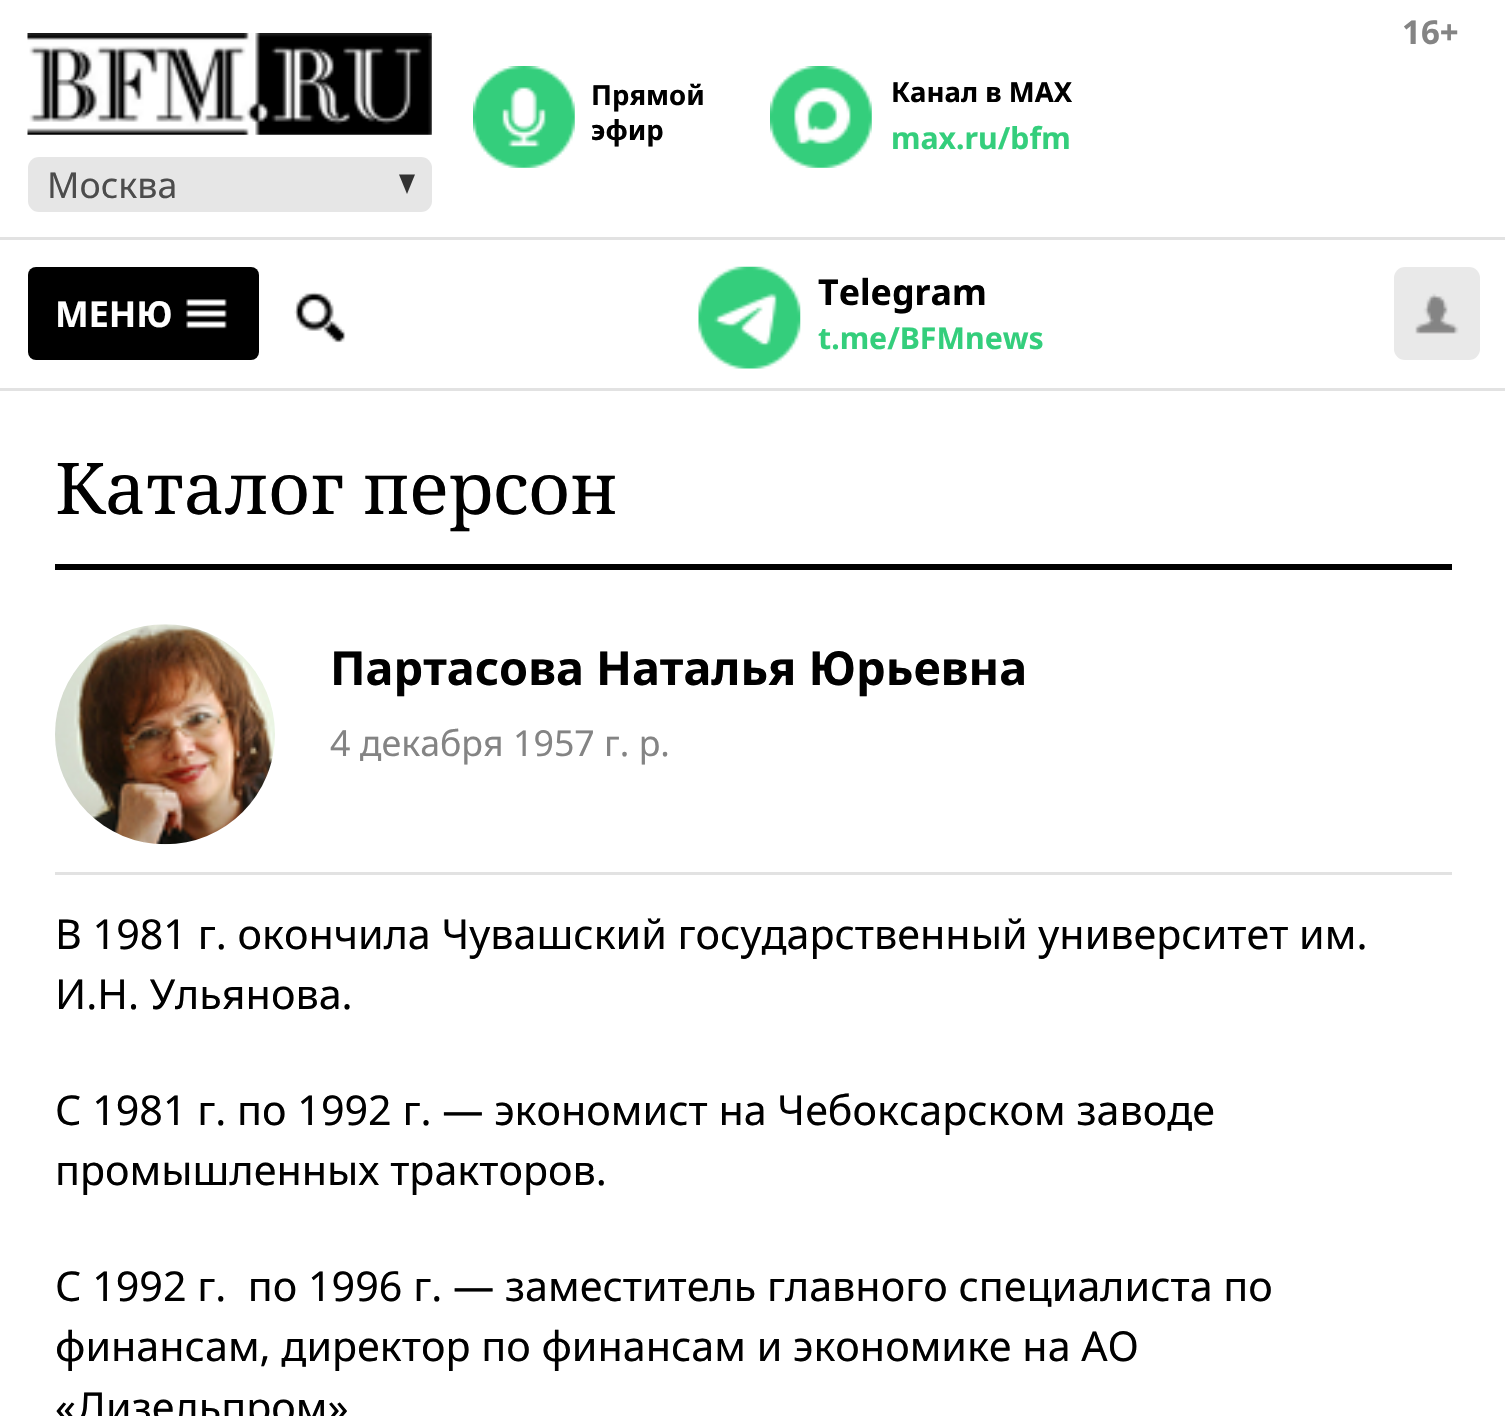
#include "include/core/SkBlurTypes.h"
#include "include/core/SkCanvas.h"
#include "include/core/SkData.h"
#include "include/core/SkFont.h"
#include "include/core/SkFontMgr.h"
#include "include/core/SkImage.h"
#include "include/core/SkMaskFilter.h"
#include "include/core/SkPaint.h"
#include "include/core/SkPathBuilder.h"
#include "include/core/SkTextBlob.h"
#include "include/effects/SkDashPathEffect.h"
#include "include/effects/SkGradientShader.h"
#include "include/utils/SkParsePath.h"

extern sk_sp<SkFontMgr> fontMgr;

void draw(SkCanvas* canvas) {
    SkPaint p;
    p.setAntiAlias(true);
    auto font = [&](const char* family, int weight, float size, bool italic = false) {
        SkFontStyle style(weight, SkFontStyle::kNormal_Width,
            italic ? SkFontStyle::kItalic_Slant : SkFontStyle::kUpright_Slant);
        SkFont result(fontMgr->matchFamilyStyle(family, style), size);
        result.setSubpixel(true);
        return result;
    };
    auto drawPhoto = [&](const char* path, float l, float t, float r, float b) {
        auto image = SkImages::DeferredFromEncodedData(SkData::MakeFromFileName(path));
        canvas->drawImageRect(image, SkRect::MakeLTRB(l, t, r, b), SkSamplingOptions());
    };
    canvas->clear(0xFFFFFFFF);
    auto font1 = font("Noto Sans", 700, 33);
    p.setColor(0xFF848484);
    canvas->drawString("16+", 1402, 44, font1, p);
    p.setColor(0xFFE2E2E2);
    canvas->drawRect(SkRect::MakeLTRB(0, 237, 1505, 240), p);
    drawPhoto("media/1.png", 473, 66, 575, 168);
    auto font2 = font("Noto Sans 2", 700, 27.5f);
    p.setColor(0xFF000000);
    canvas->drawString("П", 591, 105, font2, p);
    auto font3 = font("Noto Sans", 700, 27.5f);
    canvas->drawString("рямой", 612, 105, font3, p);
    canvas->drawString("эфир", 591, 140, font3, p);
    drawPhoto("media/2.png", 770, 66, 872, 168);
    canvas->drawString("Канал в MAX", 891, 102, font3, p);
    auto font4 = font("Noto Sans", 700, 30.25f);
    p.setColor(0xFF34CE7C);
    canvas->drawString("max.ru/bfm", 891, 149, font4, p);
    drawPhoto("media/3.png", 27, 33, 432, 135);
    p.setColor(0xFFE6E6E6);
    canvas->drawRoundRect(SkRect::MakeLTRB(28, 157, 432, 212), 11, 11, p);
    auto font5 = font("Noto Sans", 400, 35.75f);
    p.setColor(0xFF4C4C4C);
    canvas->drawString("Москва", 47, 198, font5, p);
    p.setColor(0xFF333333);
    canvas->drawPath(SkPathBuilder().moveTo(399, 174.5f).lineTo(415, 174.5f).lineTo(407, 194).close().detach(), p);
    p.setColor(0xFFE2E2E2);
    canvas->drawRect(SkRect::MakeLTRB(0, 388, 1505, 391), p);
    p.setColor(0xFF000000);
    canvas->drawRoundRect(SkRect::MakeLTRB(28, 267, 259, 360), 8, 8, p);
    auto font6 = font("Noto Sans", 700, 35.75f);
    p.setColor(0xFFFFFFFF);
    canvas->drawString("МЕНЮ", 55, 327, font6, p);
    drawPhoto("media/4.png", 186, 299, 227, 329);
    drawPhoto("media/5.png", 294, 291, 346, 343);
    drawPhoto("media/6.png", 698, 266, 801, 369);
    p.setColor(0xFF000000);
    canvas->drawString("Telegram", 818, 305, font6, p);
    p.setColor(0xFF34CE7C);
    canvas->drawString("t.me/BFMnews", 818, 349, font4, p);
    p.setColor(0xFFE9E9E9);
    canvas->drawRoundRect(SkRect::MakeLTRB(1394, 267, 1480, 360), 11, 11, p);
    drawPhoto("media/7.png", 1415, 293, 1459, 334);
    p.setColor(0xFF000000);
    canvas->drawRect(SkRect::MakeLTRB(55, 564, 1452, 570), p);
    auto font7 = font("Noto Serif", 400, 71.5f);
    canvas->drawString("Каталог персон", 55, 514, font7, p);
    p.setColor(0xFFE2E2E2);
    canvas->drawRect(SkRect::MakeLTRB(55, 872, 1452, 875), p);
    drawPhoto("media/8.png", 55, 624, 275, 845);
    auto font8 = font("Noto Sans", 700, 46.75f);
    p.setColor(0xFF000000);
    canvas->drawString("Партасова Наталья Юрьевна", 330, 685, font8, p);
    p.setColor(0xFF848484);
    canvas->drawString("4 декабря 1957 г. р.", 330, 756, font5, p);
    auto font9 = font("Noto Sans", 400, 41.25f);
    p.setColor(0xFF000000);
    {
        const struct { const char* s; float x, y; } items[] = {
            {"В 1981 г. окончила Чувашский государственный университет им.", 55, 949},
            {"И.Н. Ульянова.", 55, 1009},
            {"С 1981 г. по 1992 г. — экономист на Чебоксарском заводе", 55, 1125},
            {"промышленных тракторов.", 55, 1185},
            {"С 1992 г.  по 1996 г. — заместитель главного специалиста по", 55, 1301},
            {"финансам, директор по финансам и экономике на АО", 55, 1361},
            {"«Дизельпром»", 55, 1422},
        };
        for (auto [s, x, y] : items) {
            canvas->drawString(s, x, y, font9, p);
        }
    }
}
